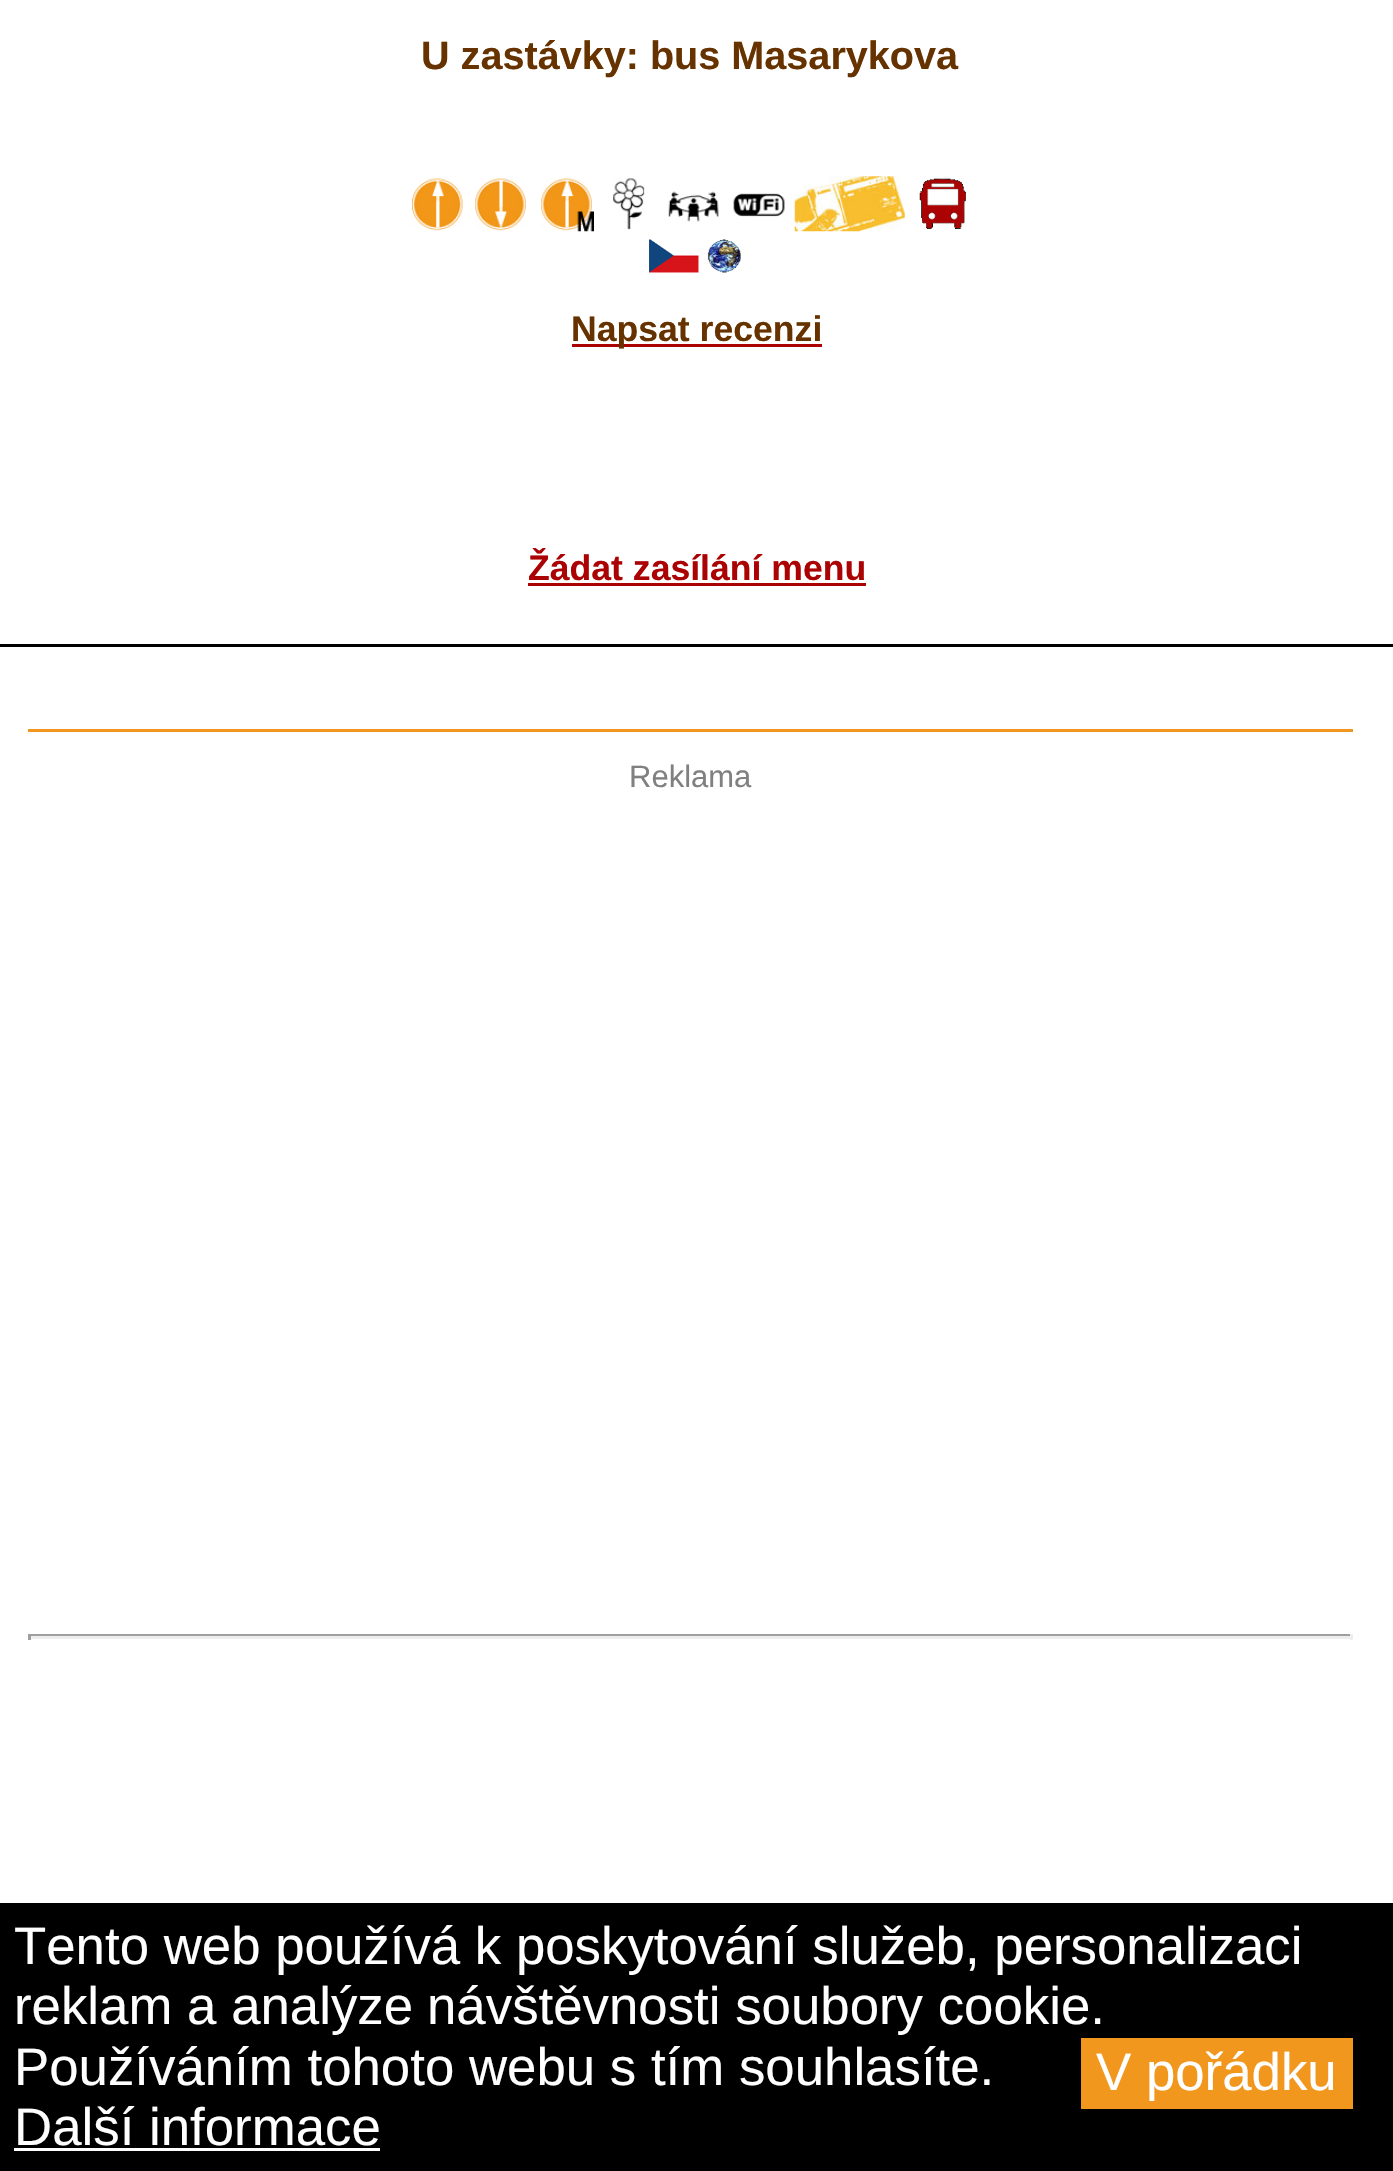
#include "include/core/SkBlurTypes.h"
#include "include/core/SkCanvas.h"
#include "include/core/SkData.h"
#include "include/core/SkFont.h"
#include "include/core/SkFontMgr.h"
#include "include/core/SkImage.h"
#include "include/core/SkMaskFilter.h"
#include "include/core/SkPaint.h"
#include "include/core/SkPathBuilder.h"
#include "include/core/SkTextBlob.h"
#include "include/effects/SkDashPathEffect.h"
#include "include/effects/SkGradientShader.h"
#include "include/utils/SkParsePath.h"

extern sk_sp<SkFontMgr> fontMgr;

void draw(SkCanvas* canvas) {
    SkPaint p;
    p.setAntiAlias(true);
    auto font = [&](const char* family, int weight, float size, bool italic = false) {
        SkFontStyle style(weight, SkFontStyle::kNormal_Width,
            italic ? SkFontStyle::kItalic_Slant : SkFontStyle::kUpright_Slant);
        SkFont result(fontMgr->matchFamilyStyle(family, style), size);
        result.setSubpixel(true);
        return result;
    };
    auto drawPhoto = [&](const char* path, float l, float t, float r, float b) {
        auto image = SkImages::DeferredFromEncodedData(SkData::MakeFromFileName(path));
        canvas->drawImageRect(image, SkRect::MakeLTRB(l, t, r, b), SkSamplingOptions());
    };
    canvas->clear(0xFFFFFFFF);
    auto font1 = font("Liberation Sans", 700, 39.6f);
    p.setColor(0xFF663300);
    canvas->drawString("U zastávky: bus Masarykova", 421, 69, font1, p);
    drawPhoto("media/1.png", 411, 178, 463, 231);
    drawPhoto("media/2.png", 475, 178, 526, 231);
    drawPhoto("media/3.png", 541, 178, 594, 232);
    drawPhoto("media/4.png", 613, 178, 645, 230);
    drawPhoto("media/5.png", 668, 191, 719, 222);
    drawPhoto("media/6.png", 733, 193, 785, 217);
    drawPhoto("media/7.png", 794, 176, 905, 232);
    drawPhoto("media/8.png", 919, 178, 966, 229);
    drawPhoto("media/9.png", 649, 239, 699, 273);
    drawPhoto("media/10.png", 707, 239, 741, 273);
    p.setColor(0xFF000000);
    canvas->drawRect(SkRect::MakeLTRB(0, 644, 1393, 647), p);
    p.setColor(0xFFAB0303);
    canvas->drawRect(SkRect::MakeLTRB(572, 344, 822, 347), p);
    auto font2 = font("Liberation Sans", 700, 35.6f);
    p.setColor(0xFF663300);
    canvas->drawString("Napsat recenzi", 571, 341, font2, p);
    p.setColor(0xFFAB0303);
    canvas->drawString("Žádat zasílání menu", 528, 580, font2, p);
    canvas->drawRect(SkRect::MakeLTRB(528, 583, 866, 586), p);
    p.setColor(0xFFF1961E);
    canvas->drawRect(SkRect::MakeLTRB(28, 729, 1353, 732), p);
    auto font3 = font("Liberation Sans", 400, 31);
    p.setColor(0xFF808080);
    canvas->drawString("Reklama", 629, 787, font3, p);
    {
        const struct { float l, t, r, b; SkColor color; } items[] = {
            {28, 1634, 1353, 1636, 0xFF9F9F9F},
            {1350, 1634, 1353, 1640, 0xFFEEEEEE},
            {28, 1636, 1353, 1639, 0xFFEEEEEE},
            {28, 1634, 31, 1640, 0xFF9F9F9F},
            {0, 1903, 1393, 2171, 0xFF000000},
        };
        for (auto [l, t, r, b, color] : items) {
            p.setColor(color);
            canvas->drawRect(SkRect::MakeLTRB(l, t, r, b), p);
        }
    }
    auto font4 = font("Liberation Sans", 400, 52.8f);
    p.setColor(0xFFFFFFFF);
    {
        const struct { const char* s; float x, y; } items[] = {
            {"Tento web používá k poskytování služeb, personalizaci", 14, 1964},
            {"reklam a analýze", 14, 2024},
            {"návštěvnosti soubory cookie.", 427, 2024},
            {"Používáním tohoto webu s tím souhlasíte.", 14, 2085},
        };
        for (auto [s, x, y] : items) {
            canvas->drawString(s, x, y, font4, p);
        }
    }
    p.setColor(0xFFF1971E);
    canvas->drawRect(SkRect::MakeLTRB(1081, 2038, 1353, 2109), p);
    p.setColor(0xFFFFFFFF);
    canvas->drawString("V pořádku", 1096, 2090, font4, p);
    canvas->drawString("Další informace", 14, 2145, font4, p);
    canvas->drawRect(SkRect::MakeLTRB(14, 2148, 380, 2151), p);
}
